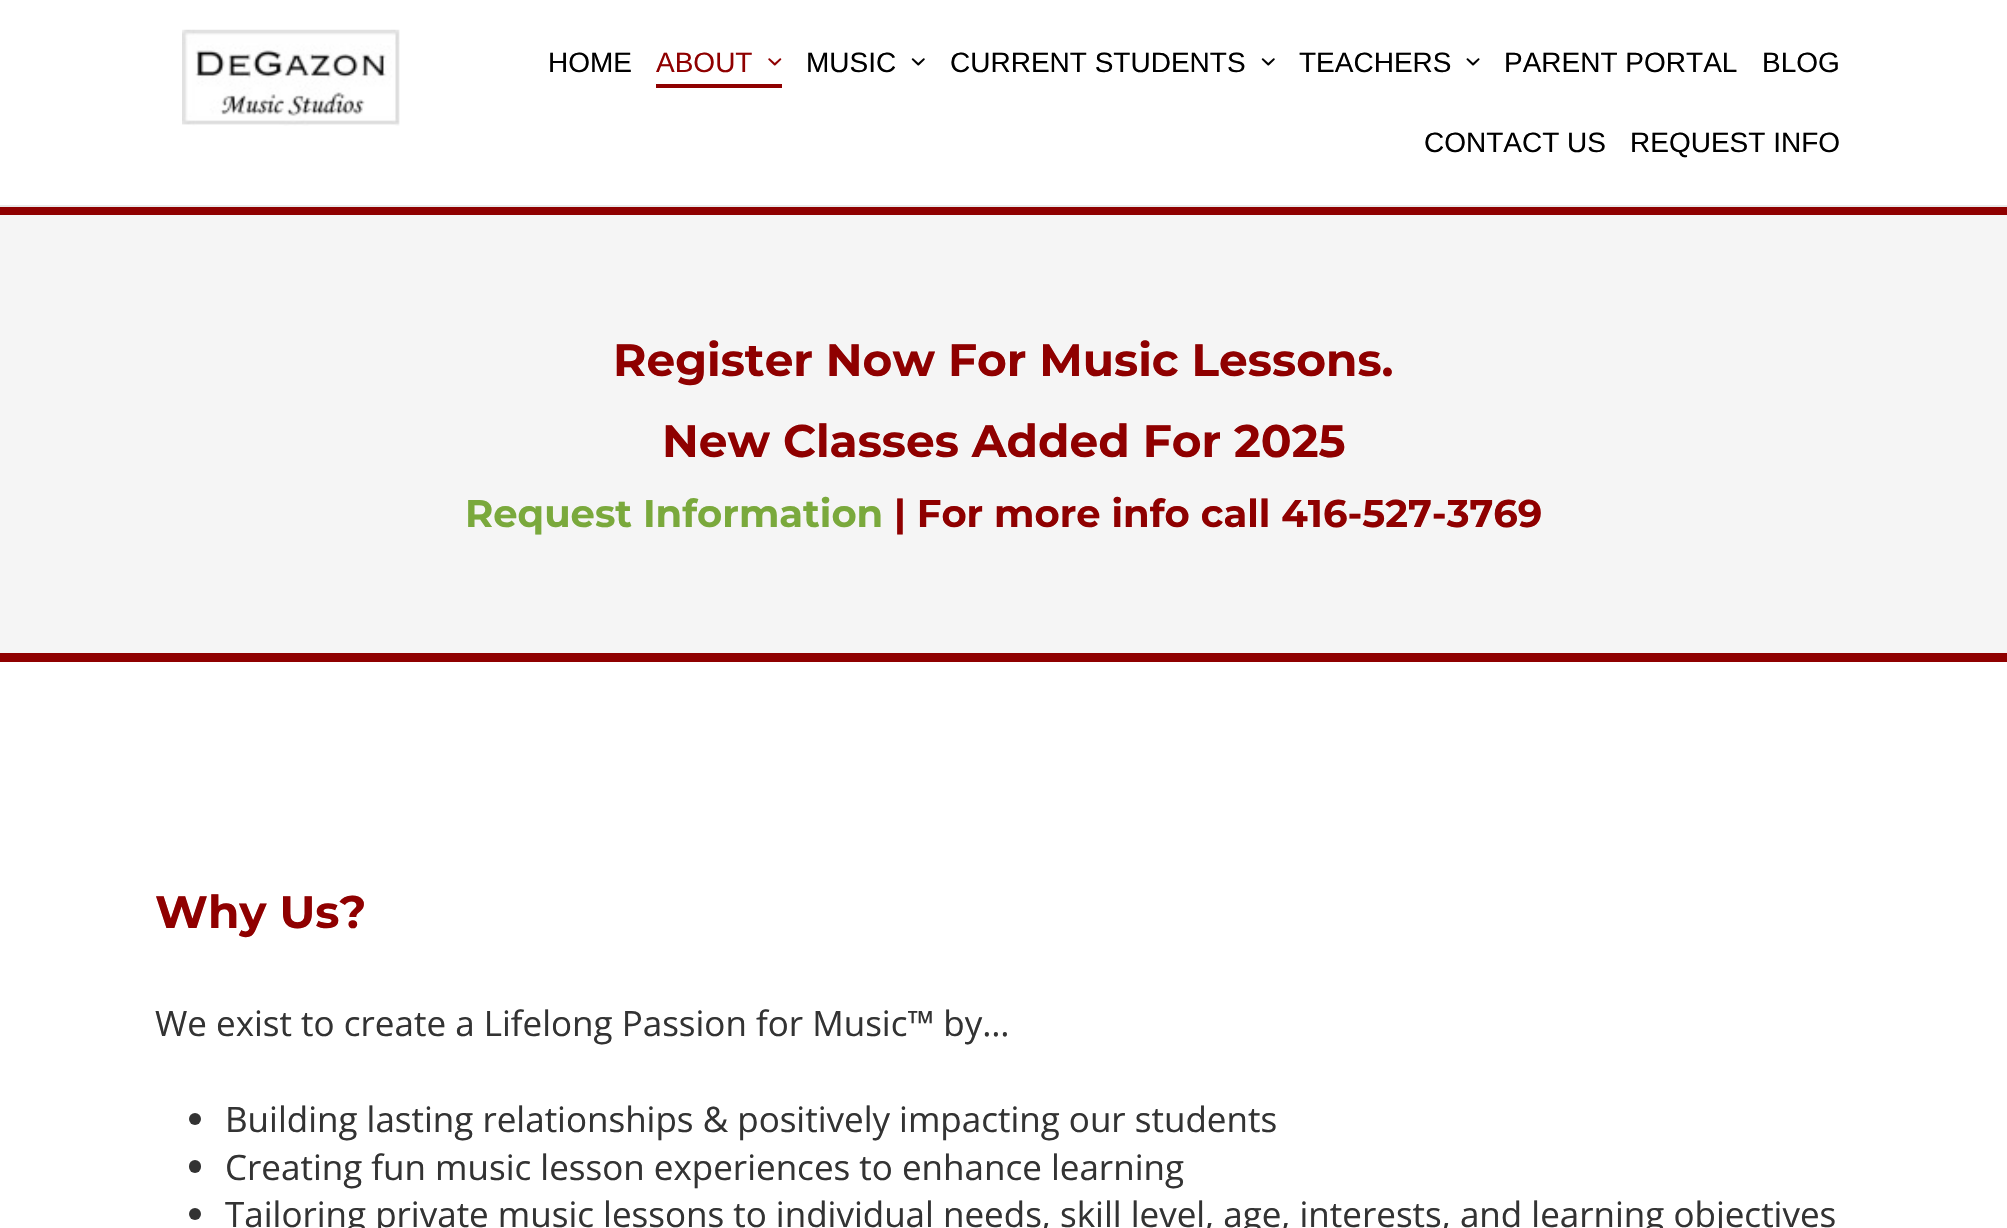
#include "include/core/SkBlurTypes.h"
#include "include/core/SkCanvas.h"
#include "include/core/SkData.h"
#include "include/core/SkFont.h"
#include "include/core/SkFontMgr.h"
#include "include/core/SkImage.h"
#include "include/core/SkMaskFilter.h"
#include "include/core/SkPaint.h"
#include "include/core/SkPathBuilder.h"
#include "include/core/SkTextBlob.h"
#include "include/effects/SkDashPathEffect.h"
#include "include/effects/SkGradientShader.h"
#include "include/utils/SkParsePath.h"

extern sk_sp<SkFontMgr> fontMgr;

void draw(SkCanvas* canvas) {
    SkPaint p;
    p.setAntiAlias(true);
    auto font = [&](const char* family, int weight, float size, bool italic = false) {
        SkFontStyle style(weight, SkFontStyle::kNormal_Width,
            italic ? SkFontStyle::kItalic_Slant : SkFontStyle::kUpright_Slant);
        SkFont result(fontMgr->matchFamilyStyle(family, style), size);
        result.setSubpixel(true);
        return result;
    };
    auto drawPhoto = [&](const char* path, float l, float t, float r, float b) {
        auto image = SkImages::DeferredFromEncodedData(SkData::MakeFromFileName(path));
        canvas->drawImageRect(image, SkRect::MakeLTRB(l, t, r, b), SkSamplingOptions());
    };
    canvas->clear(0xFFFFFFFF);
    p.setColor(0xFF8F0000);
    canvas->drawRect(SkRect::MakeLTRB(0, 207, 2007, 215), p);
    p.setColor(0xFFE9E9E9);
    canvas->drawRect(SkRect::MakeLTRB(0, 205, 2007, 207), p);
    drawPhoto("media/1.png", 182, 29, 400, 126);
    auto font1 = font("Liberation Sans", 400, 28);
    p.setColor(0xFF000000);
    canvas->drawString("HOME", 548, 72, font1, p);
    p.setColor(0xFF8F0000);
    canvas->drawRect(SkRect::MakeLTRB(656, 84, 782, 88), p);
    canvas->drawString("ABOUT", 656, 72, font1, p);
    drawPhoto("media/2.png", 768, 58, 782, 66);
    p.setColor(0xFF000000);
    canvas->drawString("MUSIC", 806, 72, font1, p);
    drawPhoto("media/3.png", 911, 58, 925, 66);
    canvas->drawString("CURRENT STUDENTS", 950, 72, font1, p);
    drawPhoto("media/3.png", 1261, 58, 1275, 66);
    canvas->drawString("TEACHERS", 1299, 72, font1, p);
    drawPhoto("media/4.png", 1466, 58, 1480, 66);
    {
        const struct { const char* s; float x, y; } items[] = {
            {"PARENT PORTAL", 1504, 72},
            {"BLOG", 1762, 72},
            {"CONTACT US", 1424, 152},
            {"REQUEST INFO", 1630, 152},
        };
        for (auto [s, x, y] : items) {
            canvas->drawString(s, x, y, font1, p);
        }
    }
    p.setColor(0xFFF5F5F5);
    canvas->drawRect(SkRect::MakeLTRB(0, 215, 2007, 653), p);
    p.setColor(0xFF8F0000);
    canvas->drawRect(SkRect::MakeLTRB(0, 653, 2007, 662), p);
    auto font2 = font("Montserrat", 700, 45.5f);
    canvas->drawString("Register Now For Music Lessons.", 613, 376, font2, p);
    canvas->drawString("New Classes Added For 2025", 662, 457, font2, p);
    auto font3 = font("Montserrat", 700, 38.5f);
    p.setColor(0xFF7AA93C);
    canvas->drawString("Request Information", 465, 527, font3, p);
    p.setColor(0xFF8F0000);
    canvas->drawString("| For more info call 416-527-3769", 894, 527, font3, p);
    canvas->drawString("Why Us?", 155, 928, font2, p);
    auto font4 = font("Open Sans", 400, 35);
    p.setColor(0xFF333333);
    canvas->drawString("We exist to create a Lifelong Passion for Music™ by…", 155, 1036, font4, p);
    canvas->drawCircle(195, 1119, 6, p);
    canvas->drawString("Building lasting relationships & positively impacting our students", 225, 1132, font4, p);
    canvas->drawRoundRect(SkRect::MakeLTRB(189, 1160, 201, 1173), 6, 6, p);
    canvas->drawString("Creating fun music lesson experiences to enhance learning", 225, 1180, font4, p);
    canvas->drawCircle(195, 1214, 6, p);
    canvas->drawString("Tailoring private music lessons to individual needs, skill level, age, interests, and learning objectives", 225, 1227, font4, p);
}
